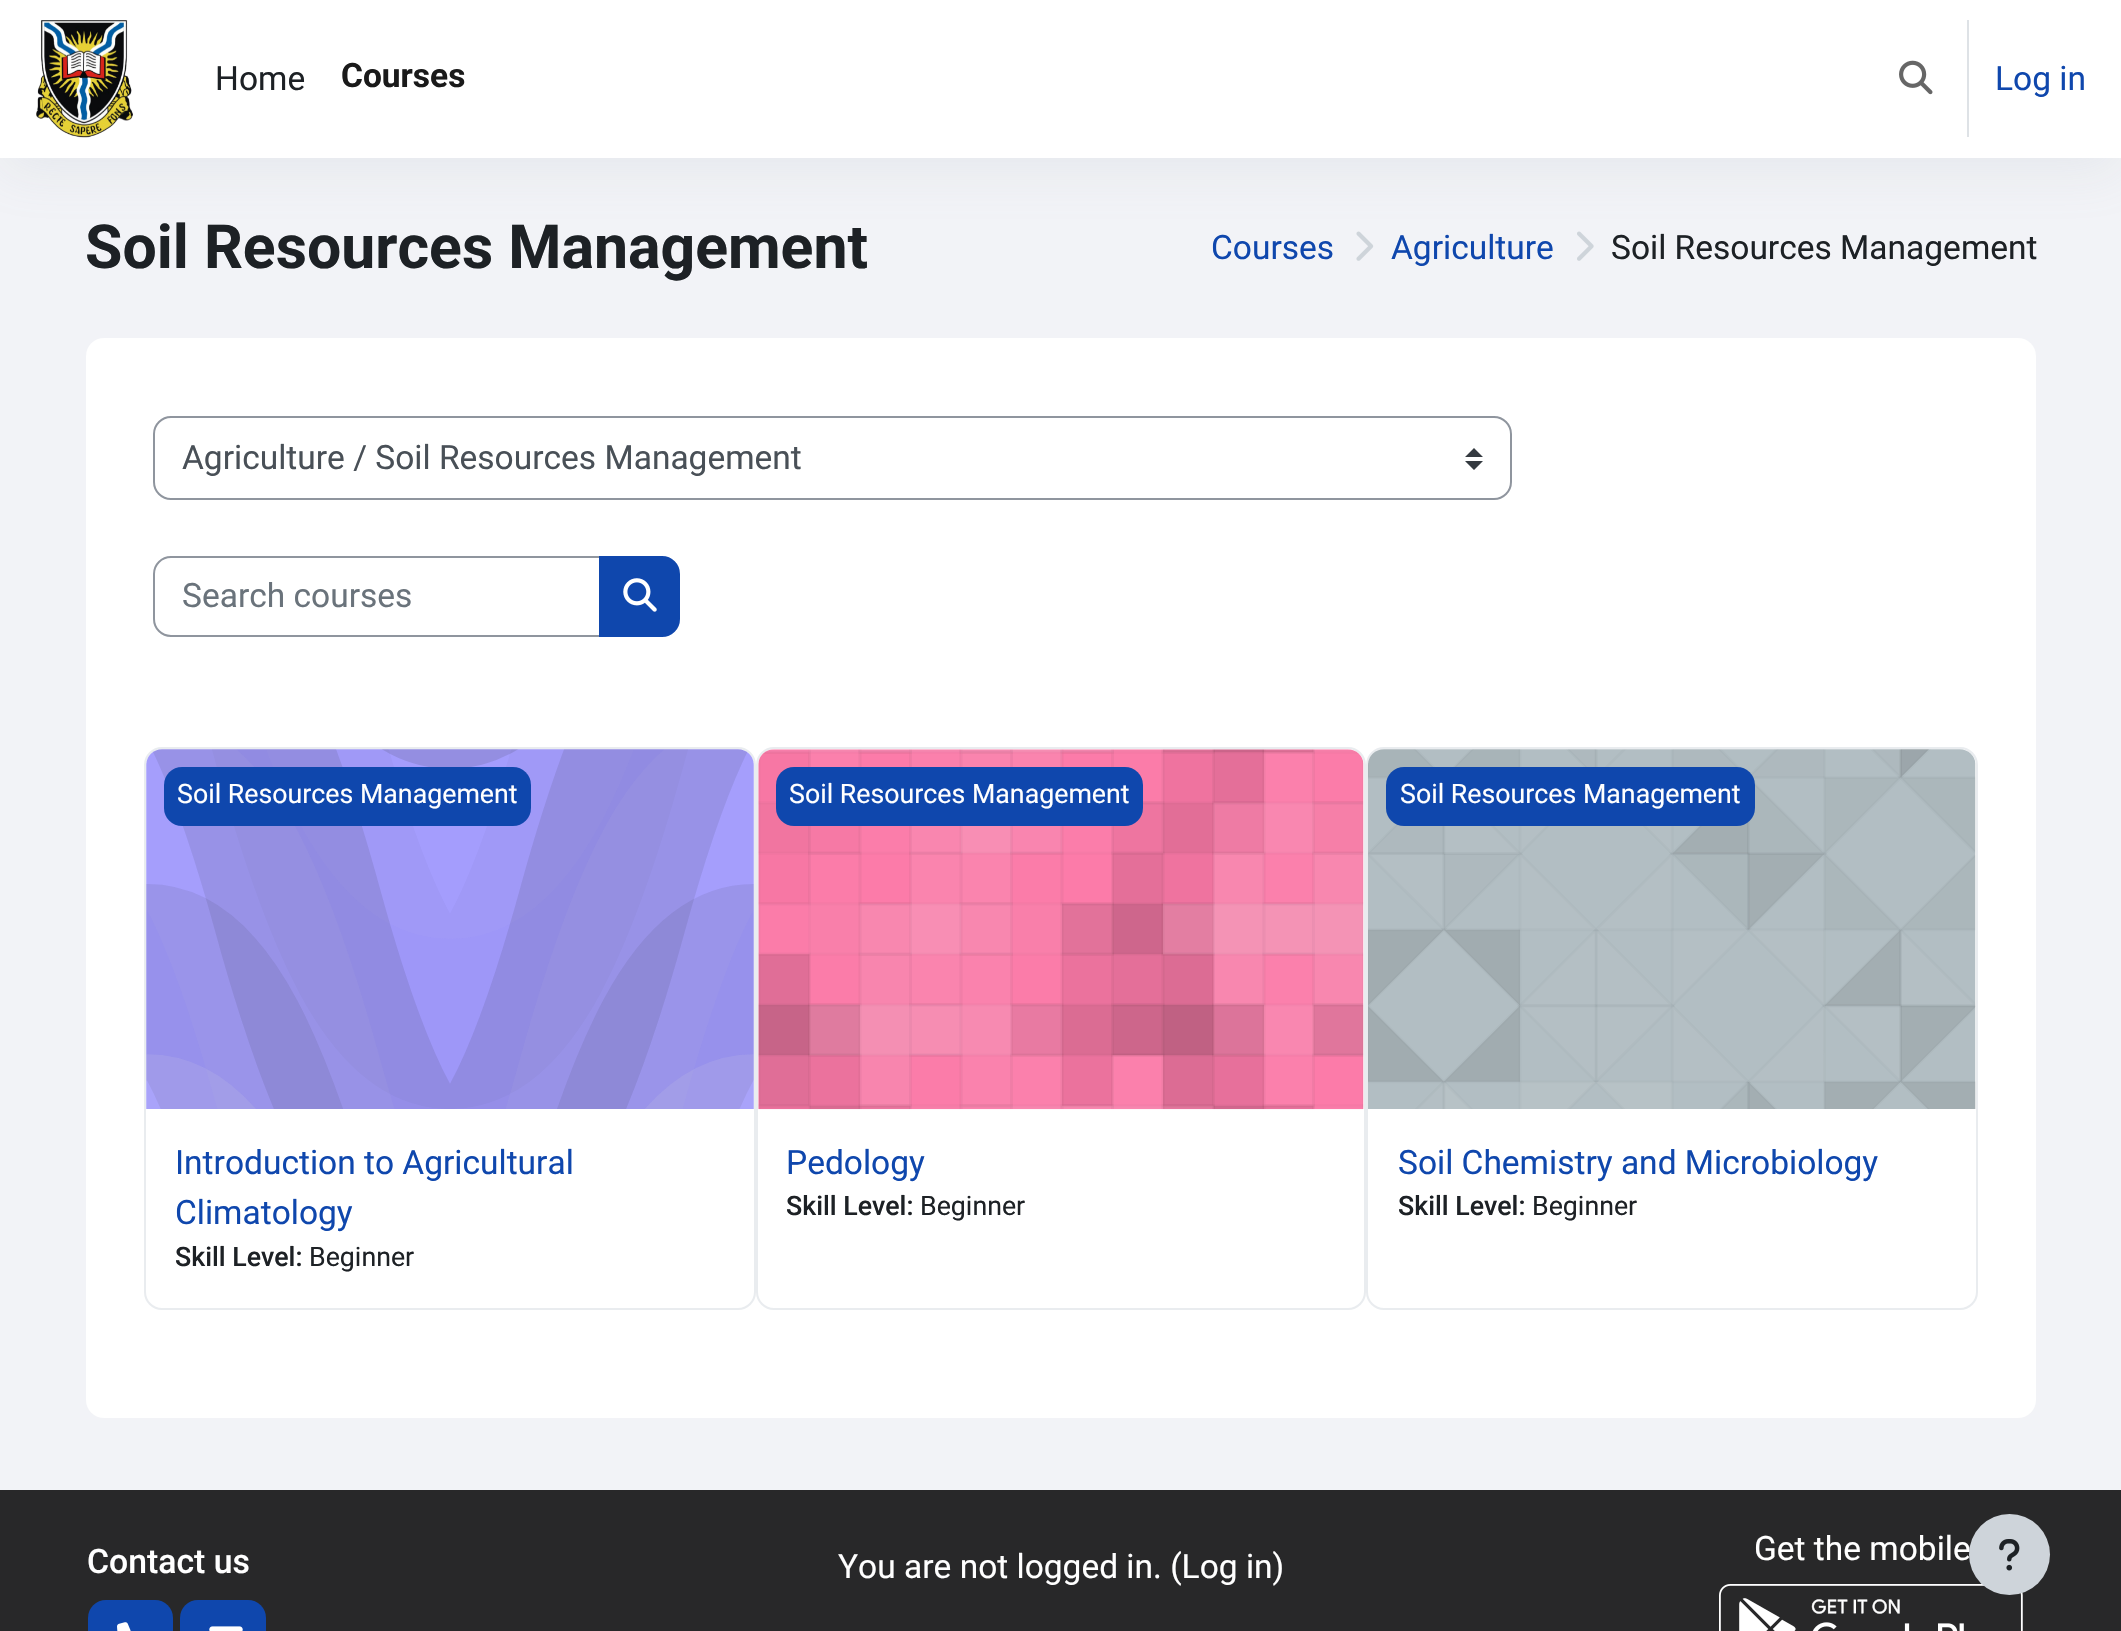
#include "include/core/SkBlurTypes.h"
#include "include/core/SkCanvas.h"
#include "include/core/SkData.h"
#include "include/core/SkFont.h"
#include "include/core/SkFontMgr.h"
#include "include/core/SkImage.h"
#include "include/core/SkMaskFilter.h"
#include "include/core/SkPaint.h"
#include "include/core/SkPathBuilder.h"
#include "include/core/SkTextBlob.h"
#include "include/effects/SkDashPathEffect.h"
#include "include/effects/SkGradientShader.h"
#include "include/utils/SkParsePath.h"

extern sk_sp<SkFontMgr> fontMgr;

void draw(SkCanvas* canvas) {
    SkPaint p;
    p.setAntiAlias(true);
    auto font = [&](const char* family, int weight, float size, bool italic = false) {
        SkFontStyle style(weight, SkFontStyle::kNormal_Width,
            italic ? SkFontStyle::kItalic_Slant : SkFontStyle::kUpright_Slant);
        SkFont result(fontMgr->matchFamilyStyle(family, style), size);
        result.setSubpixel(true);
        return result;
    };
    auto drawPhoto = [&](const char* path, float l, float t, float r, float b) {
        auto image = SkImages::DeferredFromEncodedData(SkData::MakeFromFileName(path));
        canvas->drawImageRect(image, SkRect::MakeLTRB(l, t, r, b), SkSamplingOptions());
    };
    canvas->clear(0xFFF2F3F7);
    drawPhoto("media/3.png", 1356, 231, 1374, 261);
    drawPhoto("media/4.png", 1577, 231, 1594, 261);
    p.setColor(0x218C98A4);
    p.setMaskFilter(SkMaskFilter::MakeBlur(kNormal_SkBlurStyle, 27));
    canvas->drawRect(SkRect::MakeLTRB(0, 14, 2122, 171), p);
    p.setMaskFilter(nullptr);
    p.setColor(0xFFFFFFFF);
    canvas->drawRect(SkRect::MakeLTRB(0, 0, 2121, 158), p);
    drawPhoto("media/1.png", 36, 20, 133, 138);
    auto font1 = font("Roboto", 400, 33.5f);
    p.setColor(0xFF1D2125);
    canvas->drawString("Home", 215, 90, font1, p);
    auto font2 = font("Roboto", 700, 33.5f);
    p.setColor(0xFF1A1A1A);
    canvas->drawString("Courses", 341, 87, font2, p);
    drawPhoto("media/2.png", 1899, 60, 1933, 95);
    p.setColor(0xFFDEE2E6);
    canvas->drawRect(SkRect::MakeLTRB(1967, 20, 1969, 137), p);
    p.setColor(0xFF0F47AD);
    canvas->drawString("Log in", 1995, 90, font1, p);
    auto font3 = font("Roboto", 700, 60.75f);
    p.setColor(0xFF1D2125);
    canvas->drawString("Soil Resources Management", 85, 268, font3, p);
    p.setColor(0xFF0F47AD);
    canvas->drawString("Courses", 1211, 259, font1, p);
    canvas->drawString("Agriculture", 1391, 259, font1, p);
    p.setColor(0xFF1D2125);
    canvas->drawString("Soil Resources Management", 1611, 259, font1, p);
    p.setColor(0xFFFFFFFF);
    canvas->drawRoundRect(SkRect::MakeLTRB(86, 338, 2036, 1418), 18, 18, p);
    p.setColor(0xFF343A40);
    canvas->drawPath(SkPathBuilder().moveTo(1474, 448).lineTo(1465, 457).lineTo(1483, 457).close().moveTo(1474, 470).lineTo(1465, 461).lineTo(1483, 461).close().detach(), p);
    p.setStyle(SkPaint::kStroke_Style);
    p.setStrokeWidth(2);
    p.setColor(0xFF8F959E);
    canvas->drawRoundRect(SkRect::MakeLTRB(154, 417, 1511, 499), 17, 17, p);
    p.setStyle(SkPaint::kFill_Style);
    p.setColor(0xFF495057);
    canvas->drawString("Agriculture / Soil Resources Management", 182, 469, font1, p);
    p.setStyle(SkPaint::kStroke_Style);
    p.setColor(0xFF8F959E);
    canvas->drawPath(SkPathBuilder().moveTo(171, 557).lineTo(600, 557).lineTo(600, 636).lineTo(171, 636).cubicTo(161.5f, 636, 154, 628.5f, 154, 619).lineTo(154, 574).cubicTo(154, 564.5f, 161.5f, 557, 171, 557).close().detach(), p);
    p.setStyle(SkPaint::kFill_Style);
    p.setColor(0xFF6A737B);
    canvas->drawString("Search courses", 182, 607, font1, p);
    p.setColor(0xFF0F47AD);
    canvas->drawPath(SkPathBuilder().moveTo(600, 557).lineTo(662, 557).cubicTo(671.5f, 557, 679, 564.5f, 679, 574).lineTo(679, 619).cubicTo(679, 628.5f, 671.5f, 636, 662, 636).lineTo(600, 636).close().detach(), p);
    p.setStyle(SkPaint::kStroke_Style);
    canvas->drawPath(SkPathBuilder().moveTo(600, 557).lineTo(662, 557).cubicTo(671.5f, 557, 679, 564.5f, 679, 574).lineTo(679, 619).cubicTo(679, 628.5f, 671.5f, 636, 662, 636).lineTo(600, 636).close().detach(), p);
    drawPhoto("media/5.png", 623, 578, 657, 612);
    p.setColor(0xFFE9ECEF);
    canvas->drawRoundRect(SkRect::MakeLTRB(145, 748, 755, 1309), 17, 17, p);
    drawPhoto("media/6.png", 146, 749, 754, 1109);
    p.setStyle(SkPaint::kFill_Style);
    p.setColor(0xFF0F47AD);
    canvas->drawRoundRect(SkRect::MakeLTRB(164, 767, 531, 826), 18, 18, p);
    auto font4 = font("Roboto", 400, 26.75f);
    p.setColor(0xFFFFFFFF);
    canvas->drawString("Soil Resources Management", 177, 803, font4, p);
    p.setColor(0xFF0F47AD);
    canvas->drawString("Introduction to Agricultural", 175, 1174, font1, p);
    canvas->drawString("Climatology", 175, 1224, font1, p);
    auto font5 = font("Roboto", 500, 26.75f);
    p.setColor(0xFF1D2125);
    canvas->drawString("Skill Level:", 175, 1266, font5, p);
    canvas->drawString("Beginner", 309, 1266, font4, p);
    p.setStyle(SkPaint::kStroke_Style);
    p.setColor(0xFFE9ECEF);
    canvas->drawRoundRect(SkRect::MakeLTRB(757, 748, 1365, 1309), 17, 17, p);
    drawPhoto("media/7.png", 758, 749, 1364, 1110);
    p.setStyle(SkPaint::kFill_Style);
    p.setColor(0xFF0F47AD);
    canvas->drawRoundRect(SkRect::MakeLTRB(776, 767, 1143, 826), 18, 18, p);
    p.setColor(0xFFFFFFFF);
    canvas->drawString("Soil Resources Management", 789, 803, font4, p);
    p.setColor(0xFF0F47AD);
    canvas->drawString("Pedology", 786, 1174, font1, p);
    p.setColor(0xFF1D2125);
    canvas->drawString("Skill Level:", 786, 1215, font5, p);
    canvas->drawString("Beginner", 920, 1215, font4, p);
    p.setStyle(SkPaint::kStroke_Style);
    p.setColor(0xFFE9ECEF);
    canvas->drawRoundRect(SkRect::MakeLTRB(1367, 748, 1977, 1309), 17, 17, p);
    drawPhoto("media/8.png", 1368, 749, 1976, 1109);
    p.setStyle(SkPaint::kFill_Style);
    p.setColor(0xFF0F47AD);
    canvas->drawRoundRect(SkRect::MakeLTRB(1386, 767, 1755, 826), 18, 18, p);
    p.setColor(0xFFFFFFFF);
    canvas->drawString("Soil Resources Management", 1400, 803, font4, p);
    p.setColor(0xFF0F47AD);
    canvas->drawString("Soil Chemistry and Microbiology", 1398, 1174, font1, p);
    p.setColor(0xFF1D2125);
    canvas->drawString("Skill Level:", 1398, 1215, font5, p);
    canvas->drawString("Beginner", 1532, 1215, font4, p);
    p.setColor(0xFF282829);
    canvas->drawRect(SkRect::MakeLTRB(0, 1490, 2121, 1631), p);
    auto font6 = font("Roboto", 500, 33.75f);
    p.setColor(0xFFFFFFFF);
    canvas->drawString("Contact us", 87, 1573, font6, p);
    p.setColor(0xFF0F47AD);
    canvas->drawRoundRect(SkRect::MakeLTRB(88, 1600, 173, 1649), 18, 18, p);
    drawPhoto("media/9.png", 117, 1622, 131, 1631);
    canvas->drawRoundRect(SkRect::MakeLTRB(180, 1600, 266, 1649), 18, 18, p);
    drawPhoto("media/10.png", 209, 1626, 243, 1631);
    p.setColor(0xFFFFFFFF);
    canvas->drawString("You are not logged in. (Log in)", 838, 1578, font1, p);
    canvas->drawString("Get the mobile", 1754, 1560, font1, p);
    drawPhoto("media/11.png", 1719, 1584, 2023, 1631);
    p.setColor(0xFFCED4DA);
    canvas->drawCircle(2009.5f, 1554.5f, 40.5f, p);
    drawPhoto("media/12.png", 1999, 1539, 2020, 1571);
}
